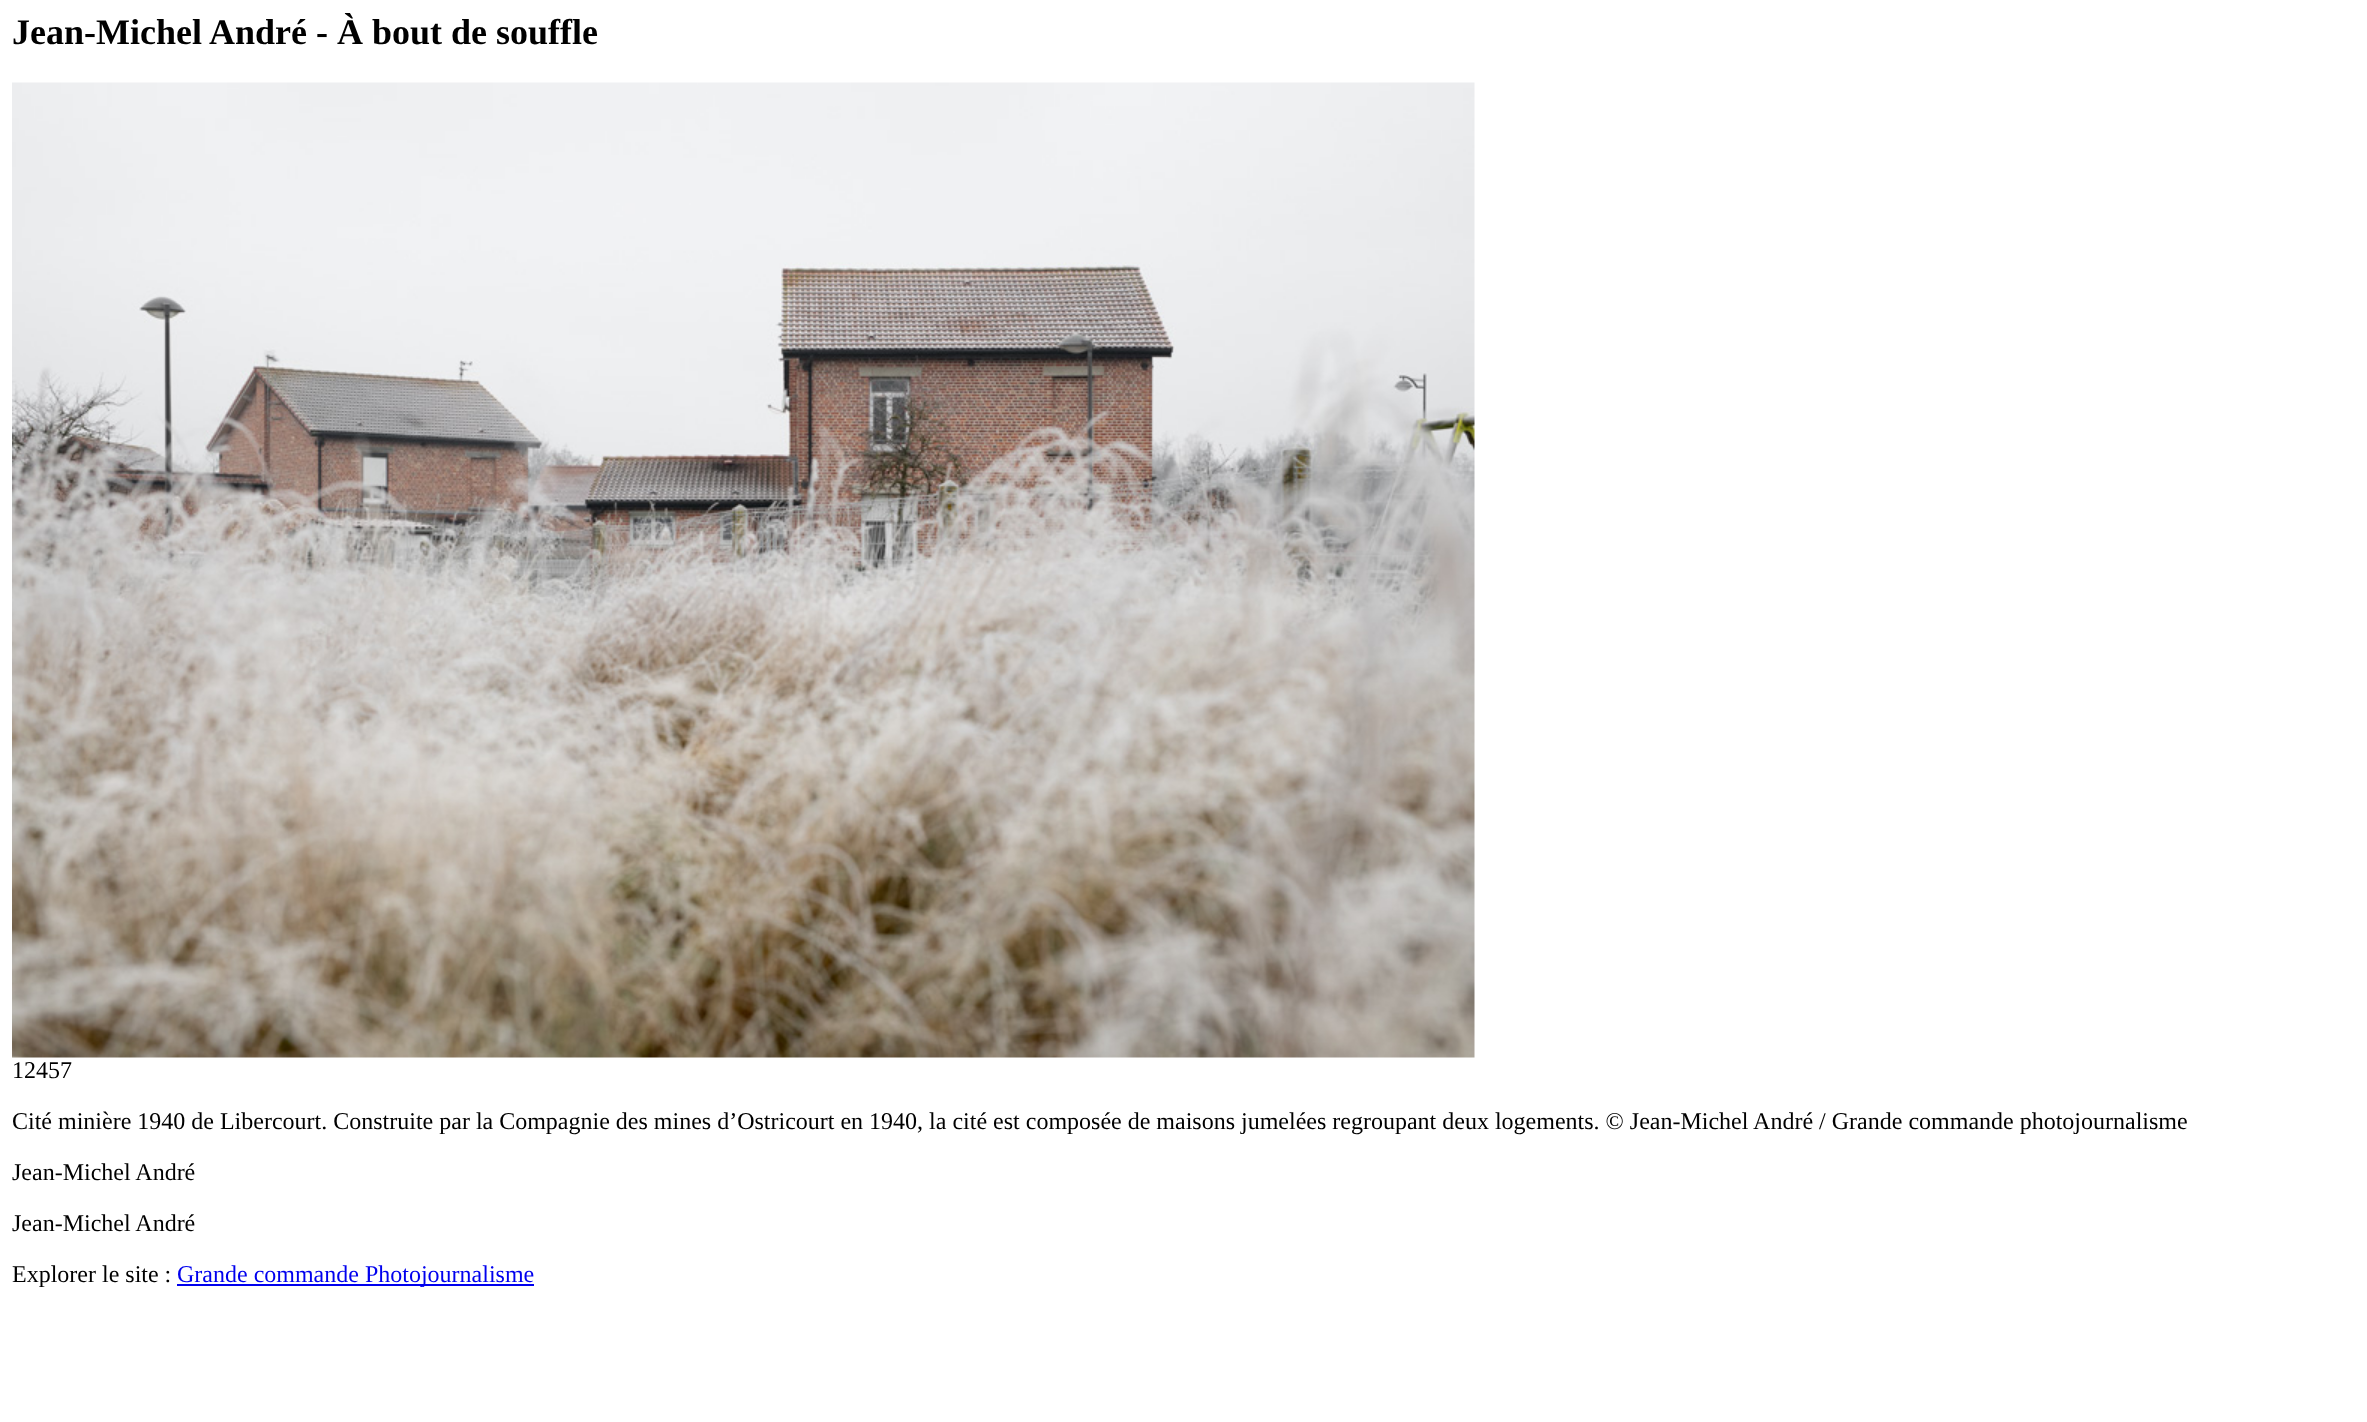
async function draw(canvas) {
  canvas.width = 2367
  canvas.height = 1422
  const ctx = canvas.getContext('2d')
  ctx.miterLimit = 4
  ctx.fontKerning = 'normal'
  async function loadImage(src) {
    const img = new Image()
    img.src = src
    await img.decode()
    return img
  }

  ctx.fillStyle = '#fff'
  ctx.fillRect(0, 0, 2367, 1422)
  ctx.font = 'bold 36px Liberation Serif'
  ctx.fillStyle = '#000'
  ctx.fillText('Jean-Michel André - À bout de souffle', 12, 44)
  ctx.drawImage(await loadImage('image0.png'), 12, 82, 1463, 976)
  ctx.font = '24px Liberation Serif'
  ctx.fillText('12457', 12, 1078)
  ctx.fillText('Cité minière 1940 de Libercourt. Construite par la Compagnie des mines d’Ostricourt en 1940, la cité est composée de maisons jumelées regroupant deux logements. © Jean-Michel André / Grande commande photojournalisme', 12, 1129)
  ctx.fillText('Jean-Michel André', 12, 1180)
  ctx.fillText('Jean-Michel André', 12, 1231)
  ctx.fillText('Explorer le site :', 12, 1282)
  ctx.fillStyle = '#00e'
  ctx.fillRect(177, 1284, 357, 2)
  ctx.fillText('Grande commande Photojournalisme', 177, 1282)
}

draw(document.querySelector('canvas'))
